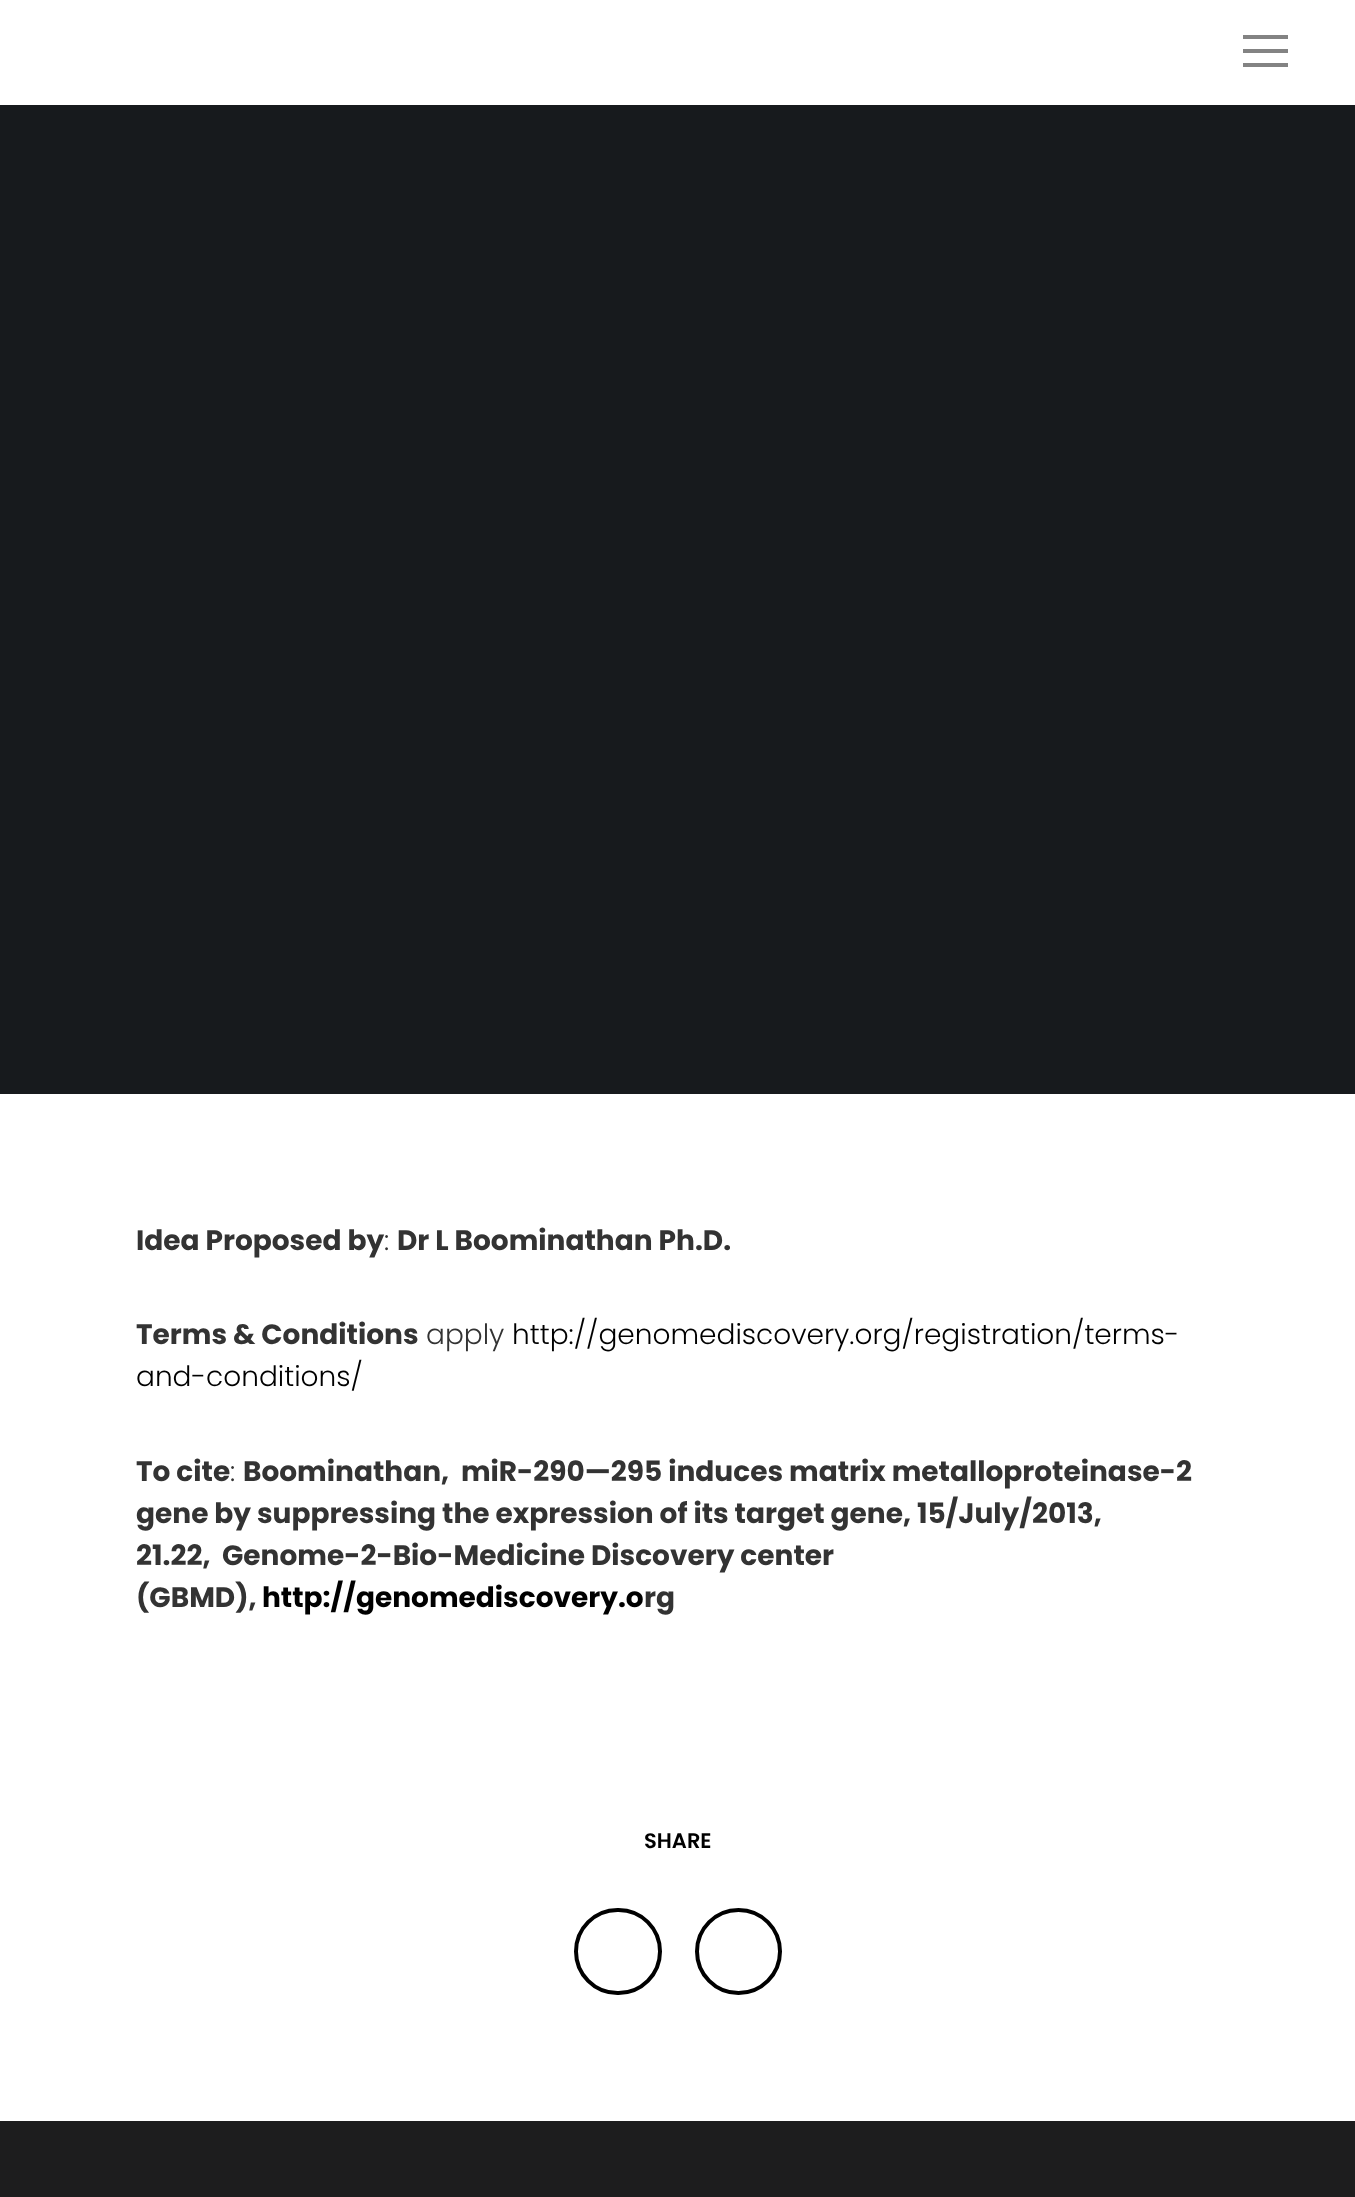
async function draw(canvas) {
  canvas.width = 1355
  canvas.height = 2197
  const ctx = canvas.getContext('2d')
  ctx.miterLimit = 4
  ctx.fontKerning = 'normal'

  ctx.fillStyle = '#171a1d'
  ctx.fillRect(0, 0, 1355, 2197)
  ctx.fillStyle = '#fff'
  ctx.fillRect(0, 0, 1355, 105)
  ctx.fillStyle = '#838383'
  ctx.fillRect(1243, 35, 45, 4)
  ctx.fillRect(1243, 49, 45, 4)
  ctx.fillRect(1243, 63, 45, 4)
  ctx.fillStyle = '#fff'
  ctx.fillRect(0, 1094, 1355, 1027)
  ctx.font = 'bold 28px Poppins'
  ctx.fillStyle = '#333'
  ctx.fillText('Idea Proposed by', 136, 1250)
  ctx.font = '300 28px Poppins'
  ctx.fillText(':', 384, 1250)
  ctx.font = 'bold 28px Poppins'
  ctx.fillText('Dr L Boominathan Ph.D.', 397, 1250)
  ctx.fillText('Terms & Conditions', 136, 1344)
  ctx.font = '300 28px Poppins'
  ctx.fillText('apply', 426, 1344)
  ctx.fillStyle = '#000'
  ctx.fillText('http://genomediscovery.org/registration/terms-', 512, 1344)
  ctx.fillText('and-conditions/', 136, 1386)
  ctx.font = 'bold 28px Poppins'
  ctx.fillStyle = '#333'
  ctx.fillText('To cite', 136, 1481)
  ctx.font = '300 28px Poppins'
  ctx.fillText(':', 230, 1481)
  ctx.font = 'bold 28px Poppins'
  ctx.fillText('Boominathan,  miR-290—295 induces matrix metalloproteinase-2', 243, 1481)
  ctx.fillText('gene by suppressing the expression of its target gene, 15/July/2013,', 136, 1523)
  ctx.fillText('21.22,', 136, 1565)
  ctx.fillText('Genome-2-Bio-Medicine Discovery center', 222, 1565)
  ctx.fillText('(GBMD),', 136, 1607)
  ctx.fillStyle = '#000'
  ctx.fillText('http://genomediscovery.o', 262, 1607)
  ctx.fillStyle = '#333'
  ctx.fillText('rg', 644, 1607)
  ctx.font = '600 21px Poppins'
  ctx.fillStyle = '#000'
  ctx.fillText('SHARE', 644, 1848)
  ctx.beginPath()
  ctx.roundRect(576, 1910, 84, 83, 41.5)
  ctx.strokeStyle = '#000'
  ctx.lineWidth = 4
  ctx.stroke()
  ctx.beginPath()
  ctx.arc(738.5, 1951.5, 41.5, 0, 2 * Math.PI)
  ctx.stroke()
  ctx.fillStyle = '#1d1d1e'
  ctx.fillRect(0, 2121, 1355, 76)
}

draw(document.querySelector('canvas'))
